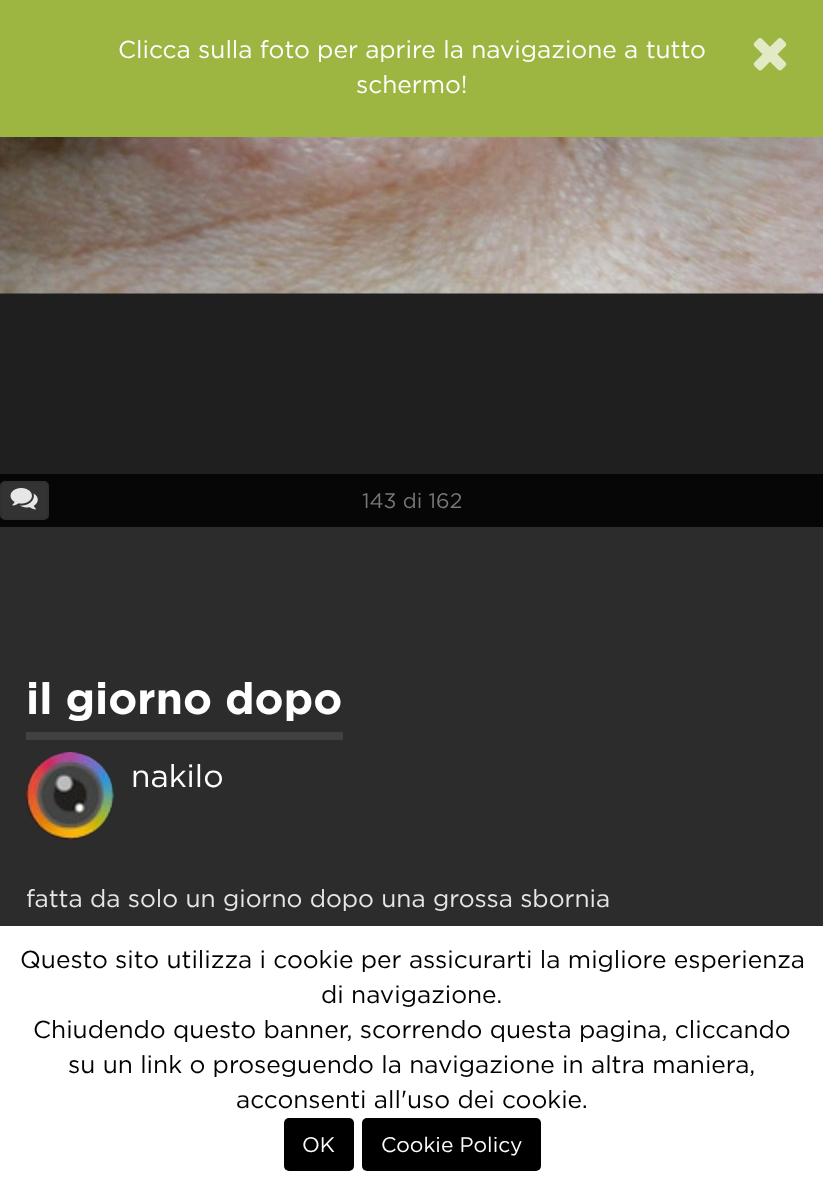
async function draw(canvas) {
  canvas.width = 823
  canvas.height = 1188
  const ctx = canvas.getContext('2d')
  ctx.miterLimit = 4
  ctx.fontKerning = 'normal'
  async function loadImage(src) {
    const img = new Image()
    img.src = src
    await img.decode()
    return img
  }

  ctx.fillStyle = '#2c2c2c'
  ctx.fillRect(0, 0, 823, 1188)
  ctx.fillStyle = '#9cb641'
  ctx.fillRect(0, 0, 823, 137)
  ctx.font = '24.5px Gotham'
  ctx.fillStyle = '#fff'
  ctx.fillText('Clicca sulla foto per aprire la navigazione a tutto', 118, 58)
  ctx.drawImage(await loadImage('image0.png'), 753, 38, 34, 33)
  ctx.fillText('schermo!', 356, 93)
  ctx.fillStyle = '#1f1f1f'
  ctx.fillRect(0, 293, 823, 181)
  ctx.drawImage(await loadImage('image1.png'), 0, 137, 823, 157)
  ctx.fillStyle = '#060606'
  ctx.fillRect(0, 474, 823, 53)
  ctx.fillStyle = '#333'
  ctx.beginPath()
  ctx.roundRect(1, 482, 47, 37, 4)
  ctx.fill()
  ctx.strokeStyle = '#303030'
  ctx.lineWidth = 2
  ctx.stroke()
  ctx.drawImage(await loadImage('image2.png'), 10, 488, 28, 22)
  ctx.font = '21px Gotham'
  ctx.fillStyle = '#777'
  ctx.fillText('143 di 162', 362, 508)
  ctx.font = 'bold 43.75px Gotham'
  ctx.fillStyle = '#fff'
  ctx.fillText('il giorno dopo', 26, 714)
  ctx.fillStyle = '#414141'
  ctx.fillRect(26, 732, 317, 8)
  ctx.drawImage(await loadImage('image3.png'), 26, 752, 88, 88)
  ctx.font = '31.5px Gotham'
  ctx.fillStyle = '#fff'
  ctx.fillText('nakilo', 131, 787)
  ctx.font = '24.5px Gotham'
  ctx.fillStyle = '#e6e6e6'
  ctx.fillText('fatta da solo un giorno dopo una grossa sbornia', 26, 907)
  ctx.fillStyle = '#fff'
  ctx.fillRect(0, 926, 823, 262)
  ctx.fillStyle = '#000'
  ctx.fillText('Questo sito utilizza i cookie per assicurarti la migliore esperienza', 20, 968)
  ctx.fillText('di navigazione.', 321, 1003)
  ctx.fillText('Chiudendo questo banner, scorrendo questa pagina, cliccando', 33, 1038)
  ctx.fillText('su un link o proseguendo la navigazione in altra maniera,', 68, 1073)
  ctx.fillText('acconsenti all\'uso dei cookie.', 236, 1108)
  ctx.beginPath()
  ctx.roundRect(284, 1118, 70, 53, 5)
  ctx.fill()
  ctx.font = '21px Gotham'
  ctx.fillStyle = '#fff'
  ctx.fillText('OK', 302, 1152)
  ctx.fillStyle = '#000'
  ctx.beginPath()
  ctx.roundRect(362, 1118, 179, 53, 5)
  ctx.fill()
  ctx.fillStyle = '#fff'
  ctx.fillText('Cookie Policy', 381, 1152)
}

draw(document.querySelector('canvas'))
